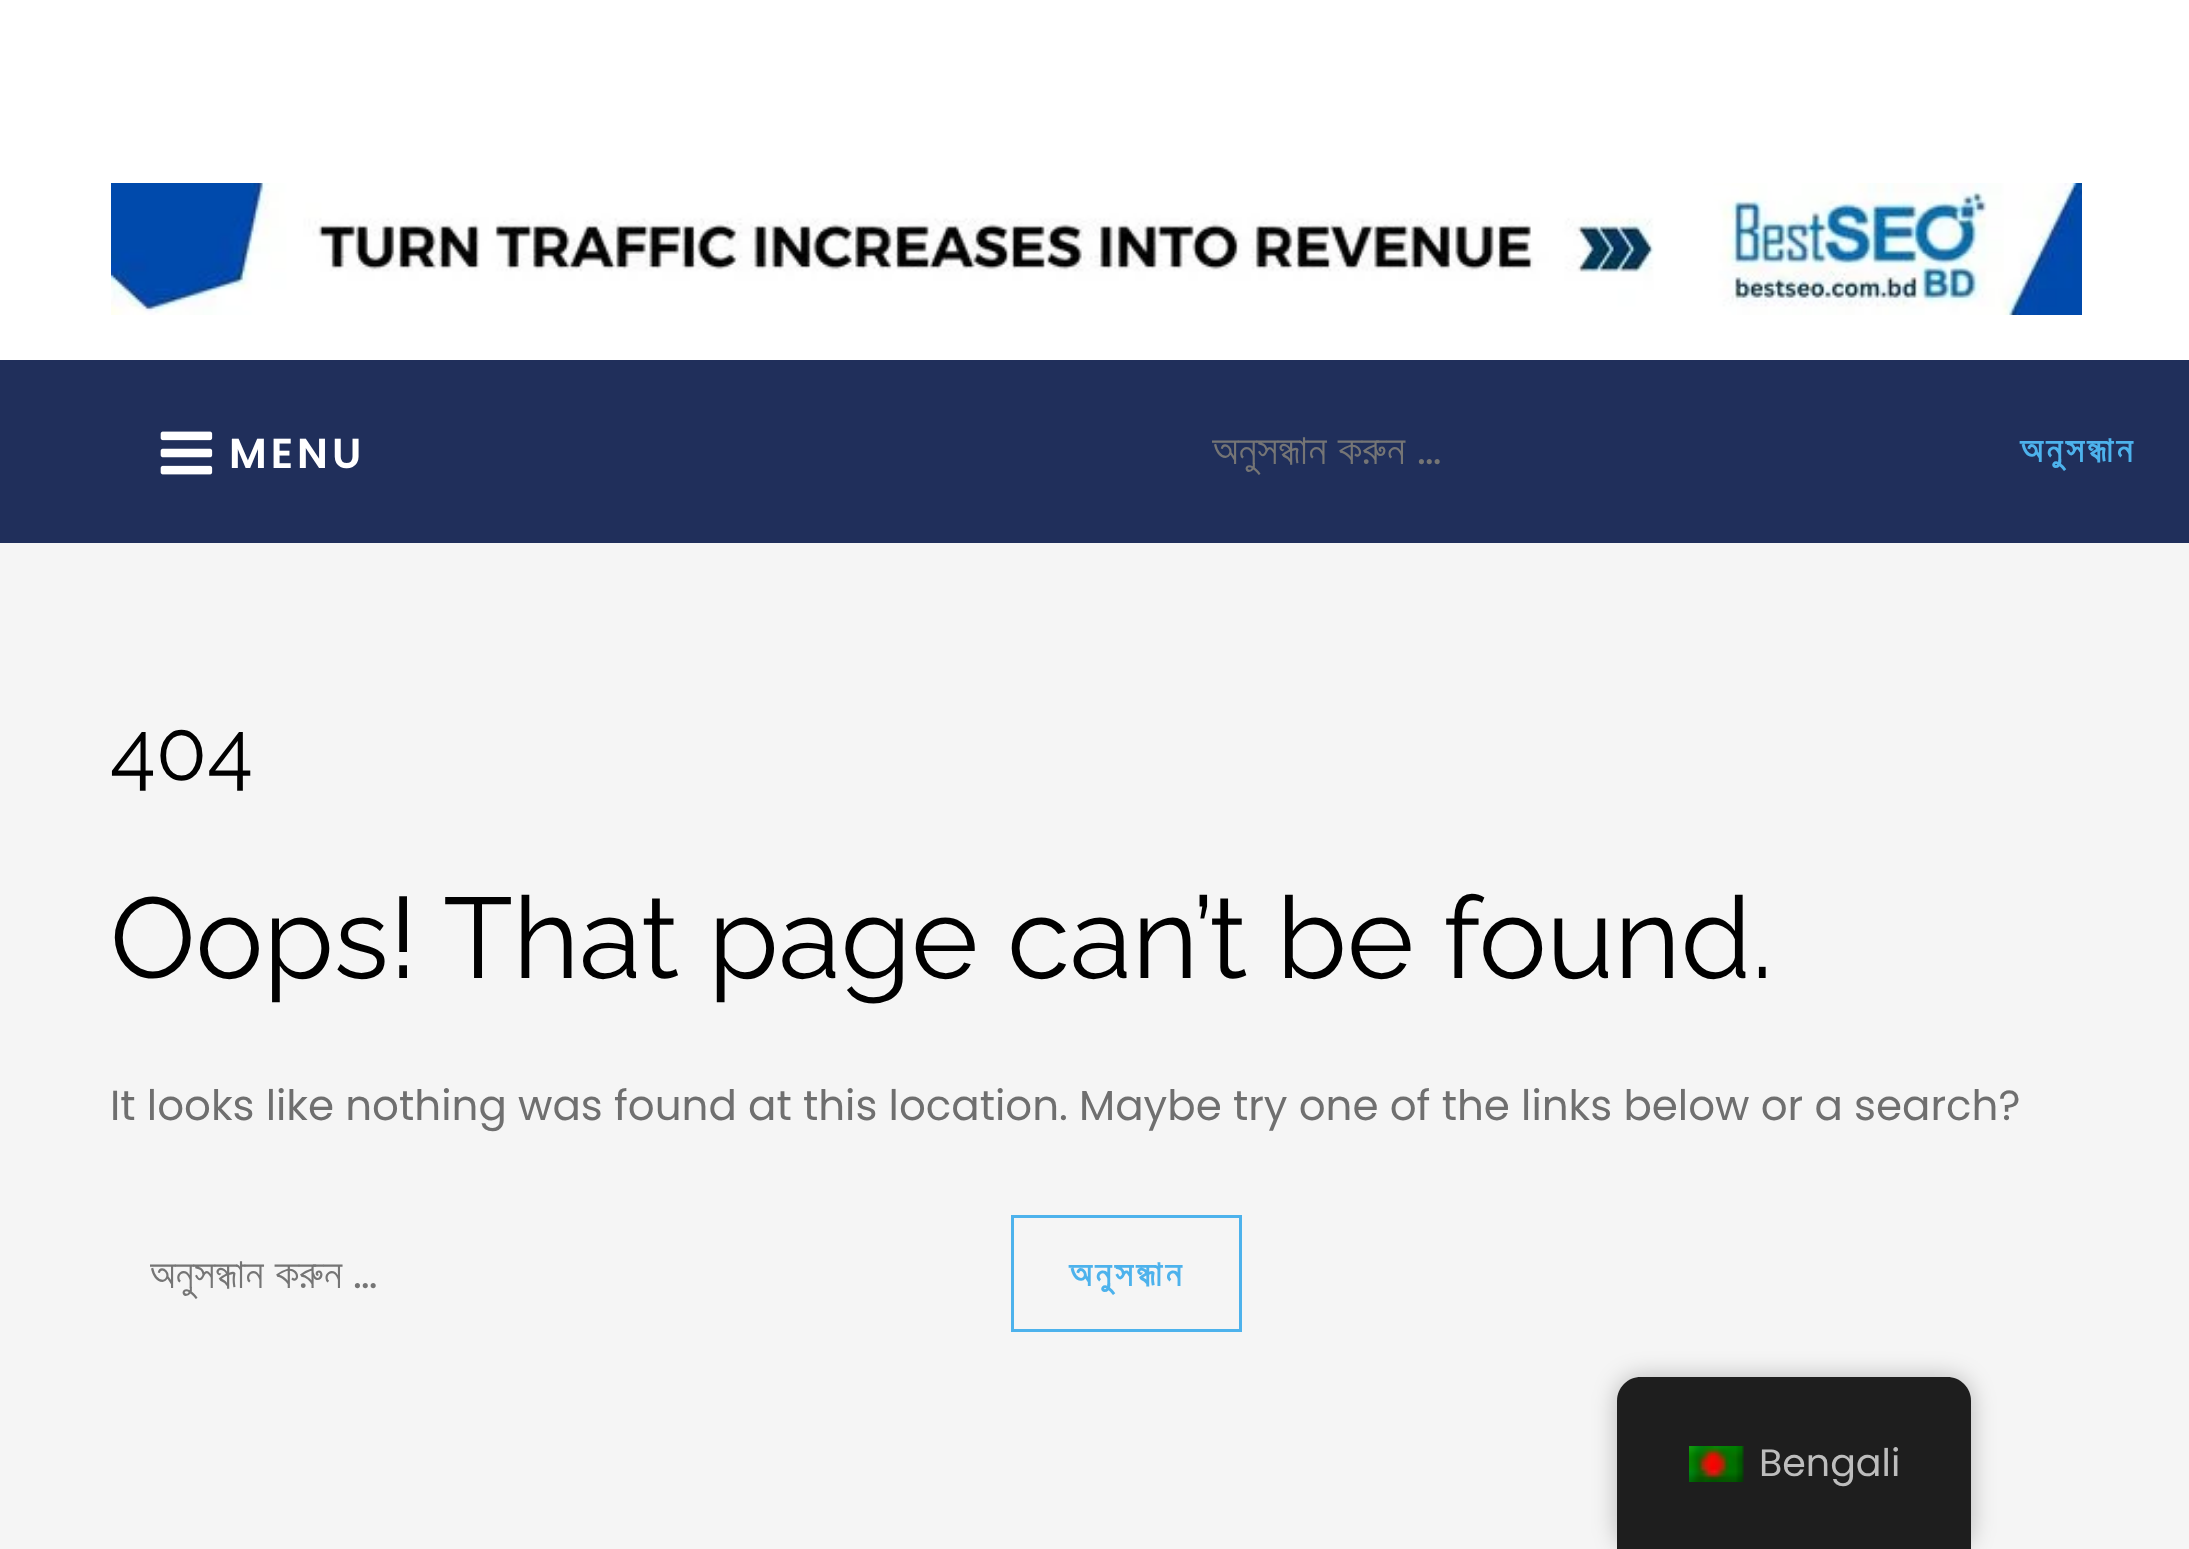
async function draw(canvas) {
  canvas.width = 2189
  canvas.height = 1549
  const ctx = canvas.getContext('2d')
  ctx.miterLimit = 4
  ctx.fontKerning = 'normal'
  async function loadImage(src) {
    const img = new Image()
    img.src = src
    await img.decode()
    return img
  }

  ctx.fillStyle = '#f5f5f5'
  ctx.fillRect(0, 0, 2189, 1549)
  ctx.fillStyle = '#fff'
  ctx.fillRect(0, 0, 2189, 360)
  ctx.drawImage(await loadImage('image0.png'), 111, 183, 1971, 132)
  ctx.fillStyle = '#202f5b'
  ctx.fillRect(0, 360, 2189, 183)
  ctx.drawImage(await loadImage('image1.png'), 160, 431, 53, 44)
  ctx.letterSpacing = '4px'
  ctx.font = '600 42px Poppins'
  ctx.fillStyle = '#fff'
  ctx.fillText('MENU', 229, 468)
  ctx.save()
  ctx.beginPath()
  ctx.rect(1212, 420, 771, 63)
  ctx.clip()
  ctx.letterSpacing = '0px'
  ctx.wordSpacing = '1px'
  ctx.font = '42px FreeSans'
  ctx.fillStyle = '#757575'
  ctx.fillText('অনুসন্ধান করুন', 1212, 464)
  ctx.restore()
  ctx.letterSpacing = '0px'
  ctx.font = '42px Poppins'
  ctx.fillStyle = '#757575'
  ctx.fillText('…', 1417, 464)
  ctx.letterSpacing = '3.5px'
  ctx.font = 'bold 36px FreeSans'
  ctx.fillStyle = '#4db2ec'
  ctx.fillText('অনুসন্ধান', 2020, 462)
  ctx.letterSpacing = '0px'
  ctx.font = '84px Raleway'
  ctx.fillStyle = '#000'
  ctx.fillText('404', 110, 780)
  ctx.font = '114px Raleway'
  ctx.fillText('Oops! That page can’t be found.', 110, 978)
  ctx.font = '42px Poppins'
  ctx.fillStyle = '#6f6f6f'
  ctx.fillText('It looks like nothing was found at this location. Maybe try one of the links below or a search?', 110, 1120)
  ctx.save()
  ctx.beginPath()
  ctx.rect(150, 1242, 771, 63)
  ctx.clip()
  ctx.wordSpacing = '1px'
  ctx.font = '42px FreeSans'
  ctx.fillStyle = '#757575'
  ctx.fillText('অনুসন্ধান করুন', 149, 1288)
  ctx.restore()
  ctx.fillStyle = '#757575'
  ctx.fillText('…', 353, 1288)
  ctx.strokeStyle = '#4db2ec'
  ctx.lineWidth = 3
  ctx.strokeRect(1012.5, 1216.5, 228, 114)
  ctx.letterSpacing = '3.5px'
  ctx.font = 'bold 36px FreeSans'
  ctx.fillStyle = '#4db2ec'
  ctx.fillText('অনুসন্ধান', 1069, 1286)
  ctx.fillStyle = '#00000040'
  ctx.filter = 'blur(12px)'
  ctx.beginPath()
  ctx.roundRect(1617, 1377, 354, 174, 24)
  ctx.fill()
  ctx.filter = 'none'
  ctx.fillStyle = '#1e1e1e'
  ctx.beginPath()
  ctx.moveTo(1641, 1377)
  ctx.lineTo(1947, 1377)
  ctx.bezierCurveTo(1960.5, 1377, 1971, 1387.5, 1971, 1401)
  ctx.lineTo(1971, 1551)
  ctx.lineTo(1617, 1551)
  ctx.lineTo(1617, 1401)
  ctx.bezierCurveTo(1617, 1387.5, 1627.5, 1377, 1641, 1377)
  ctx.closePath()
  ctx.fill()
  ctx.drawImage(await loadImage('image2.png'), 1689, 1446, 55, 36)
  ctx.letterSpacing = '0px'
  ctx.font = '38px Poppins'
  ctx.fillStyle = '#bdbdbd'
  ctx.fillText('Bengali', 1759, 1476)
}

draw(document.querySelector('canvas'))
